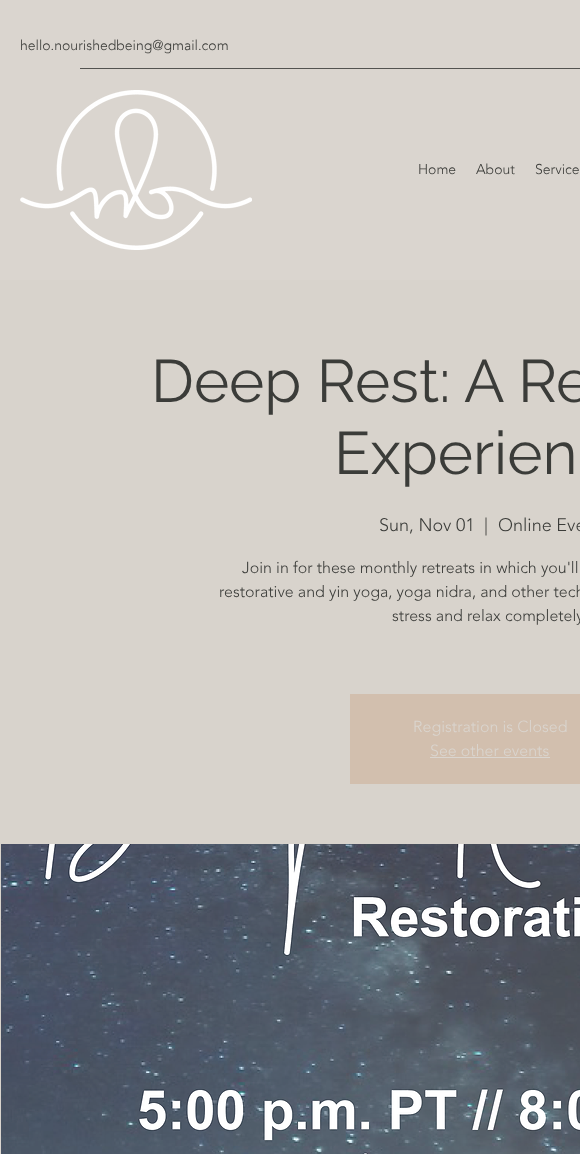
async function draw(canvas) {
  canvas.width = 580
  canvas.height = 1154
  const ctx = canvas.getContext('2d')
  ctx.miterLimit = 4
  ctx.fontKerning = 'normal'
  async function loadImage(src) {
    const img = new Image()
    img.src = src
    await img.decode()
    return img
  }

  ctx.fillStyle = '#dad5cf'
  ctx.fillRect(0, 0, 580, 1154)
  ctx.font = '300 14px "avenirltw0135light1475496"'
  ctx.fillStyle = '#3b3c39'
  ctx.fillText('hello.nourishedbeing@gmail.com', 20, 50)
  ctx.fillStyle = '#535350'
  ctx.fillRect(80, 68, 500, 1)
  ctx.drawImage(await loadImage('image0.png'), 20, 90, 232, 160)
  ctx.fillStyle = '#3b3c39'
  ctx.fillText('Home', 418, 174)
  ctx.fillText('About', 476, 174)
  ctx.fillText('Service', 535, 174)
  ctx.fillStyle = '#d8d3cc'
  ctx.fillRect(0, 280, 580, 840)
  ctx.font = '60px Raleway'
  ctx.fillStyle = '#3b3c39'
  ctx.fillText('Deep Rest: A Re', 151, 402)
  ctx.fillText('Experien', 334, 474)
  ctx.font = '300 18px "avenirltw0135light1475496"'
  ctx.fillText('Sun, Nov 01', 379, 531)
  ctx.fillText('|', 484, 531)
  ctx.fillText('Online Eve', 498, 531)
  ctx.font = '300 16px "avenirltw0135light1475496"'
  ctx.fillText('Join in for these monthly retreats in which you\'ll', 242, 573)
  ctx.fillText('restorative and yin yoga, yoga nidra, and other tech', 219, 597)
  ctx.fillText('stress and relax completely', 392, 621)
  ctx.fillStyle = '#d2bfae'
  ctx.fillRect(350, 694, 230, 90)
  ctx.fillStyle = '#dad5cf'
  ctx.fillText('Registration is Closed', 413, 732)
  ctx.fillText('See other events', 430, 756)
  ctx.fillRect(430, 757, 120, 1)
  ctx.drawImage(await loadImage('image1.png'), 1, 844, 579, 310)
}

draw(document.querySelector('canvas'))
